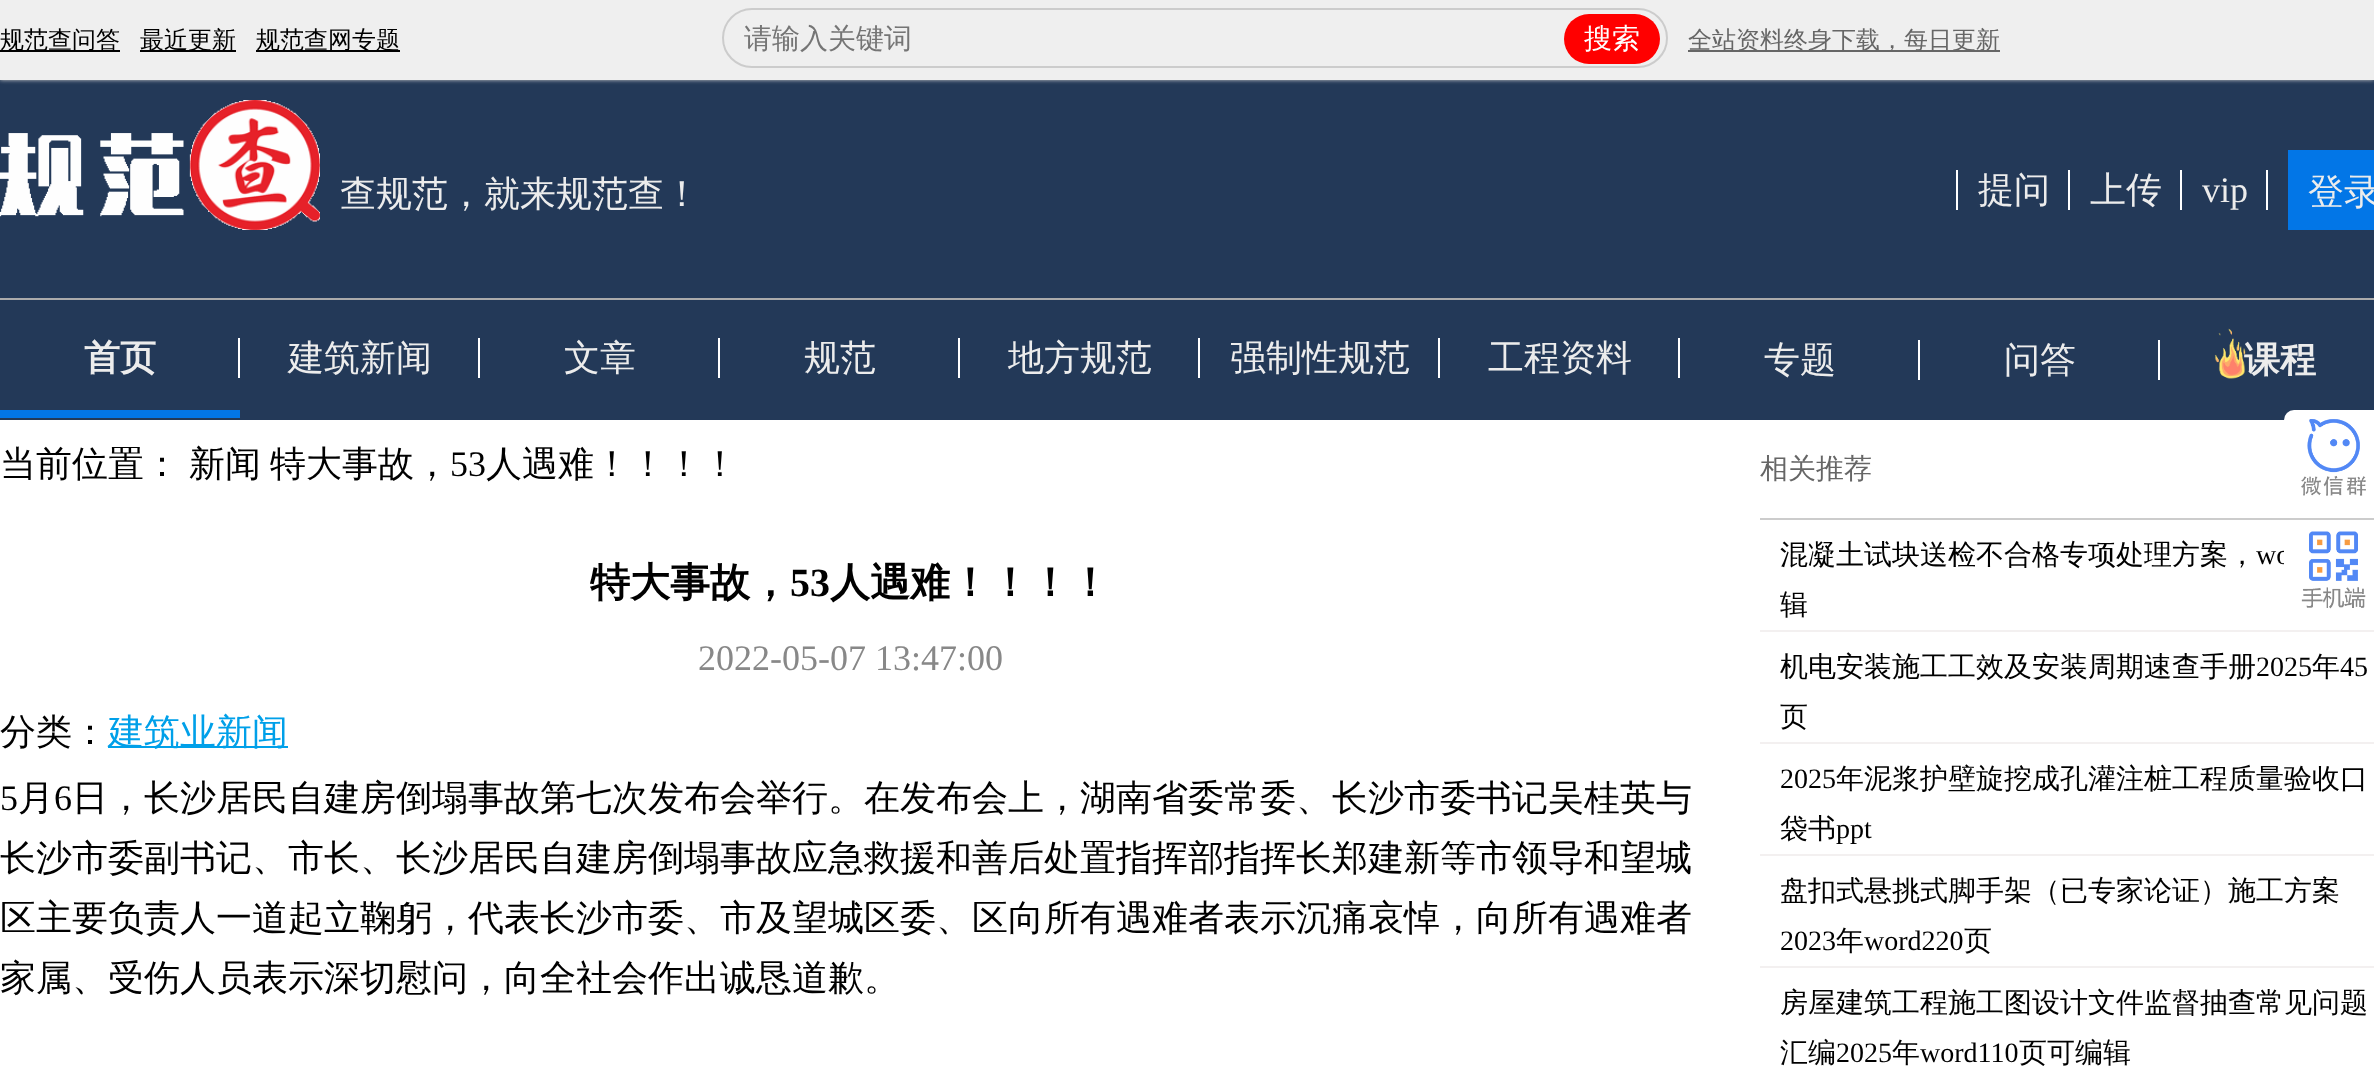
async function draw(canvas) {
  canvas.width = 2374
  canvas.height = 1073
  const ctx = canvas.getContext('2d')
  ctx.miterLimit = 4
  ctx.fontKerning = 'normal'
  async function loadImage(src) {
    const img = new Image()
    img.src = src
    await img.decode()
    return img
  }

  ctx.fillStyle = '#fff'
  ctx.fillRect(0, 0, 2374, 1073)
  ctx.fillStyle = '#233958'
  ctx.fillRect(0, 80, 2374, 340)
  ctx.fillStyle = '#ccc'
  ctx.filter = 'blur(2px)'
  ctx.beginPath()
  ctx.rect(0, 0, 2374, 80)
  ctx.fill()
  ctx.filter = 'none'
  ctx.fillStyle = '#efefef'
  ctx.fillRect(0, 0, 2374, 80)
  ctx.fillStyle = '#000'
  ctx.fillRect(0, 50, 120, 2)
  ctx.font = '500 24px WenQuanYi Zen Hei'
  ctx.fillText('规范查问答', 0, 48)
  ctx.fillRect(140, 50, 96, 2)
  ctx.fillText('最近更新', 140, 48)
  ctx.fillRect(256, 50, 144, 2)
  ctx.fillText('规范查网专题', 256, 48)
  ctx.beginPath()
  ctx.roundRect(723, 9, 944, 58, 29)
  ctx.strokeStyle = '#ccc'
  ctx.lineWidth = 2
  ctx.stroke()
  ctx.font = '500 28px WenQuanYi Zen Hei'
  ctx.fillStyle = '#757575'
  ctx.fillText('请输入关键词', 744, 48)
  ctx.fillStyle = '#f00'
  ctx.beginPath()
  ctx.roundRect(1564, 14, 96, 50, 25)
  ctx.fill()
  ctx.fillStyle = '#fff'
  ctx.fillText('搜索', 1584, 48)
  ctx.fillStyle = '#666'
  ctx.fillRect(1688, 50, 312, 2)
  ctx.font = '500 24px WenQuanYi Zen Hei'
  ctx.fillText('全站资料终身下载，每日更新', 1688, 48)
  ctx.fillStyle = '#ababab'
  ctx.fillRect(0, 298, 2374, 2)
  ctx.drawImage(await loadImage('image0.png'), 0, 100, 320, 130)
  ctx.font = '500 36px WenQuanYi Zen Hei'
  ctx.fillStyle = '#ececec'
  ctx.fillText('查规范，就来规范查！', 340, 206)
  ctx.fillStyle = '#fff'
  ctx.fillRect(1956, 170, 2, 40)
  ctx.fillStyle = '#ececec'
  ctx.fillText('提问', 1978, 202)
  ctx.fillStyle = '#fff'
  ctx.fillRect(2068, 170, 2, 40)
  ctx.fillStyle = '#ececec'
  ctx.fillText('上传', 2090, 202)
  ctx.fillStyle = '#fff'
  ctx.fillRect(2180, 170, 2, 40)
  ctx.font = '36px Liberation Serif'
  ctx.fillStyle = '#ececec'
  ctx.fillText('vip', 2202, 202)
  ctx.fillStyle = '#fff'
  ctx.fillRect(2266, 170, 2, 40)
  ctx.fillStyle = '#0276e7'
  ctx.fillRect(2288, 150, 86, 80)
  ctx.font = '500 36px WenQuanYi Zen Hei'
  ctx.fillStyle = '#ececec'
  ctx.fillText('登录', 2308, 204)
  ctx.fillStyle = '#0276e7'
  ctx.fillRect(0, 410, 240, 8)
  ctx.font = 'bold 36px WenQuanYi Zen Hei'
  ctx.fillStyle = '#ececec'
  ctx.fillText('首页', 84, 370)
  ctx.fillStyle = '#fff'
  ctx.fillRect(238, 338, 2, 40)
  ctx.font = '500 36px WenQuanYi Zen Hei'
  ctx.fillStyle = '#ececec'
  ctx.fillText('建筑新闻', 288, 370)
  ctx.fillStyle = '#fff'
  ctx.fillRect(478, 338, 2, 40)
  ctx.fillStyle = '#ececec'
  ctx.fillText('文章', 564, 370)
  ctx.fillStyle = '#fff'
  ctx.fillRect(718, 338, 2, 40)
  ctx.fillStyle = '#ececec'
  ctx.fillText('规范', 804, 370)
  ctx.fillStyle = '#fff'
  ctx.fillRect(958, 338, 2, 40)
  ctx.fillStyle = '#ececec'
  ctx.fillText('地方规范', 1008, 370)
  ctx.fillStyle = '#fff'
  ctx.fillRect(1198, 338, 2, 40)
  ctx.fillStyle = '#ececec'
  ctx.fillText('强制性规范', 1230, 370)
  ctx.fillStyle = '#fff'
  ctx.fillRect(1438, 338, 2, 40)
  ctx.fillStyle = '#ececec'
  ctx.fillText('工程资料', 1488, 370)
  ctx.fillStyle = '#fff'
  ctx.fillRect(1678, 338, 2, 40)
  ctx.fillStyle = '#ececec'
  ctx.fillText('专题', 1764, 372)
  ctx.fillStyle = '#fff'
  ctx.fillRect(1918, 340, 2, 40)
  ctx.fillStyle = '#ececec'
  ctx.fillText('问答', 2004, 372)
  ctx.fillStyle = '#fff'
  ctx.fillRect(2158, 340, 2, 40)
  ctx.font = 'bold 36px WenQuanYi Zen Hei'
  ctx.fillStyle = '#ececec'
  ctx.fillText('课程', 2244, 372)
  ctx.drawImage(await loadImage('image1.png'), 2214, 328, 32, 51)
  ctx.fillStyle = '#fff'
  ctx.beginPath()
  ctx.roundRect(2284, 410, 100, 100, 10)
  ctx.fill()
  ctx.drawImage(await loadImage('image2.png'), 2301, 419, 65, 77)
  ctx.font = '28px Liberation Serif'
  ctx.fillStyle = '#000'
  ctx.fillText('wo', 2256, 564)
  ctx.fillStyle = '#fff'
  ctx.beginPath()
  ctx.roundRect(2284, 520, 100, 100, 10)
  ctx.fill()
  ctx.drawImage(await loadImage('image3.png'), 2301, 531, 65, 78)
  ctx.font = '500 36px WenQuanYi Zen Hei'
  ctx.fillStyle = '#000'
  ctx.fillText('当前位置：', 0, 476)
  ctx.fillText('新闻', 189, 476)
  ctx.fillText('特大事故，', 270, 476)
  ctx.font = '36px Liberation Serif'
  ctx.fillText('53', 450, 476)
  ctx.font = '500 36px WenQuanYi Zen Hei'
  ctx.fillText('人遇难！！！！', 486, 476)
  ctx.font = 'bold 40px WenQuanYi Zen Hei'
  ctx.fillText('特大事故，', 590, 596)
  ctx.font = 'bold 40px Liberation Serif'
  ctx.fillText('53', 790, 596)
  ctx.font = 'bold 40px WenQuanYi Zen Hei'
  ctx.fillText('人遇难！！！！', 830, 596)
  ctx.font = '36px Liberation Serif'
  ctx.fillStyle = '#888'
  ctx.fillText('2022-05-07 13:47:00', 698, 670)
  ctx.font = '500 36px WenQuanYi Zen Hei'
  ctx.fillStyle = '#000'
  ctx.fillText('分类：', 0, 744)
  ctx.fillStyle = '#00a0e9'
  ctx.fillRect(108, 746, 180, 2)
  ctx.fillText('建筑业新闻', 108, 744)
  ctx.font = '36px Liberation Serif'
  ctx.fillStyle = '#000'
  ctx.fillText('5', 0, 810)
  ctx.font = '500 36px WenQuanYi Zen Hei'
  ctx.fillText('月', 18, 810)
  ctx.font = '36px Liberation Serif'
  ctx.fillText('6', 54, 810)
  ctx.font = '500 36px WenQuanYi Zen Hei'
  ctx.fillText('日，长沙居民自建房倒塌事故第七次发布会举行。在发布会上，湖南省委常委、长沙市委书记吴桂英与', 72, 810)
  ctx.fillText('长沙市委副书记、市长、长沙居民自建房倒塌事故应急救援和善后处置指挥部指挥长郑建新等市领导和望城', 0, 870)
  ctx.fillText('区主要负责人一道起立鞠躬，代表长沙市委、市及望城区委、区向所有遇难者表示沉痛哀悼，向所有遇难者', 0, 930)
  ctx.fillText('家属、受伤人员表示深切慰问，向全社会作出诚恳道歉。', 0, 990)
  ctx.fillStyle = '#ccc'
  ctx.fillRect(1760, 518, 614, 2)
  ctx.font = '500 28px WenQuanYi Zen Hei'
  ctx.fillStyle = '#666'
  ctx.fillText('相关推荐', 1760, 478)
  ctx.fillStyle = '#f3f0f0'
  ctx.fillRect(1760, 630, 614, 2)
  ctx.fillStyle = '#000'
  ctx.fillText('混凝土试块送检不合格专项处理方案，', 1780, 564)
  ctx.fillText('辑', 1780, 614)
  ctx.fillStyle = '#f3f0f0'
  ctx.fillRect(1760, 742, 614, 2)
  ctx.fillStyle = '#000'
  ctx.fillText('机电安装施工工效及安装周期速查手册', 1780, 676)
  ctx.font = '28px Liberation Serif'
  ctx.fillText('2025', 2256, 676)
  ctx.font = '500 28px WenQuanYi Zen Hei'
  ctx.fillText('年', 2312, 676)
  ctx.font = '28px Liberation Serif'
  ctx.fillText('45', 2340, 676)
  ctx.font = '500 28px WenQuanYi Zen Hei'
  ctx.fillText('页', 1780, 726)
  ctx.fillStyle = '#f3f0f0'
  ctx.fillRect(1760, 854, 614, 2)
  ctx.font = '28px Liberation Serif'
  ctx.fillStyle = '#000'
  ctx.fillText('2025', 1780, 788)
  ctx.font = '500 28px WenQuanYi Zen Hei'
  ctx.fillText('年泥浆护壁旋挖成孔灌注桩工程质量验收口', 1836, 788)
  ctx.fillText('袋书', 1780, 838)
  ctx.font = '28px Liberation Serif'
  ctx.fillText('ppt', 1836, 838)
  ctx.fillStyle = '#f3f0f0'
  ctx.fillRect(1760, 966, 614, 2)
  ctx.font = '500 28px WenQuanYi Zen Hei'
  ctx.fillStyle = '#000'
  ctx.fillText('盘扣式悬挑式脚手架（已专家论证）施工方案', 1780, 900)
  ctx.font = '28px Liberation Serif'
  ctx.fillText('2023', 1780, 950)
  ctx.font = '500 28px WenQuanYi Zen Hei'
  ctx.fillText('年', 1836, 950)
  ctx.font = '28px Liberation Serif'
  ctx.fillText('word220', 1864, 950)
  ctx.font = '500 28px WenQuanYi Zen Hei'
  ctx.fillText('页', 1964, 950)
  ctx.fillText('房屋建筑工程施工图设计文件监督抽查常见问题', 1780, 1012)
  ctx.fillText('汇编', 1780, 1062)
  ctx.font = '28px Liberation Serif'
  ctx.fillText('2025', 1836, 1062)
  ctx.font = '500 28px WenQuanYi Zen Hei'
  ctx.fillText('年', 1892, 1062)
  ctx.font = '28px Liberation Serif'
  ctx.fillText('word110', 1920, 1062)
  ctx.font = '500 28px WenQuanYi Zen Hei'
  ctx.fillText('页可编辑', 2019, 1062)
}

draw(document.querySelector('canvas'))
